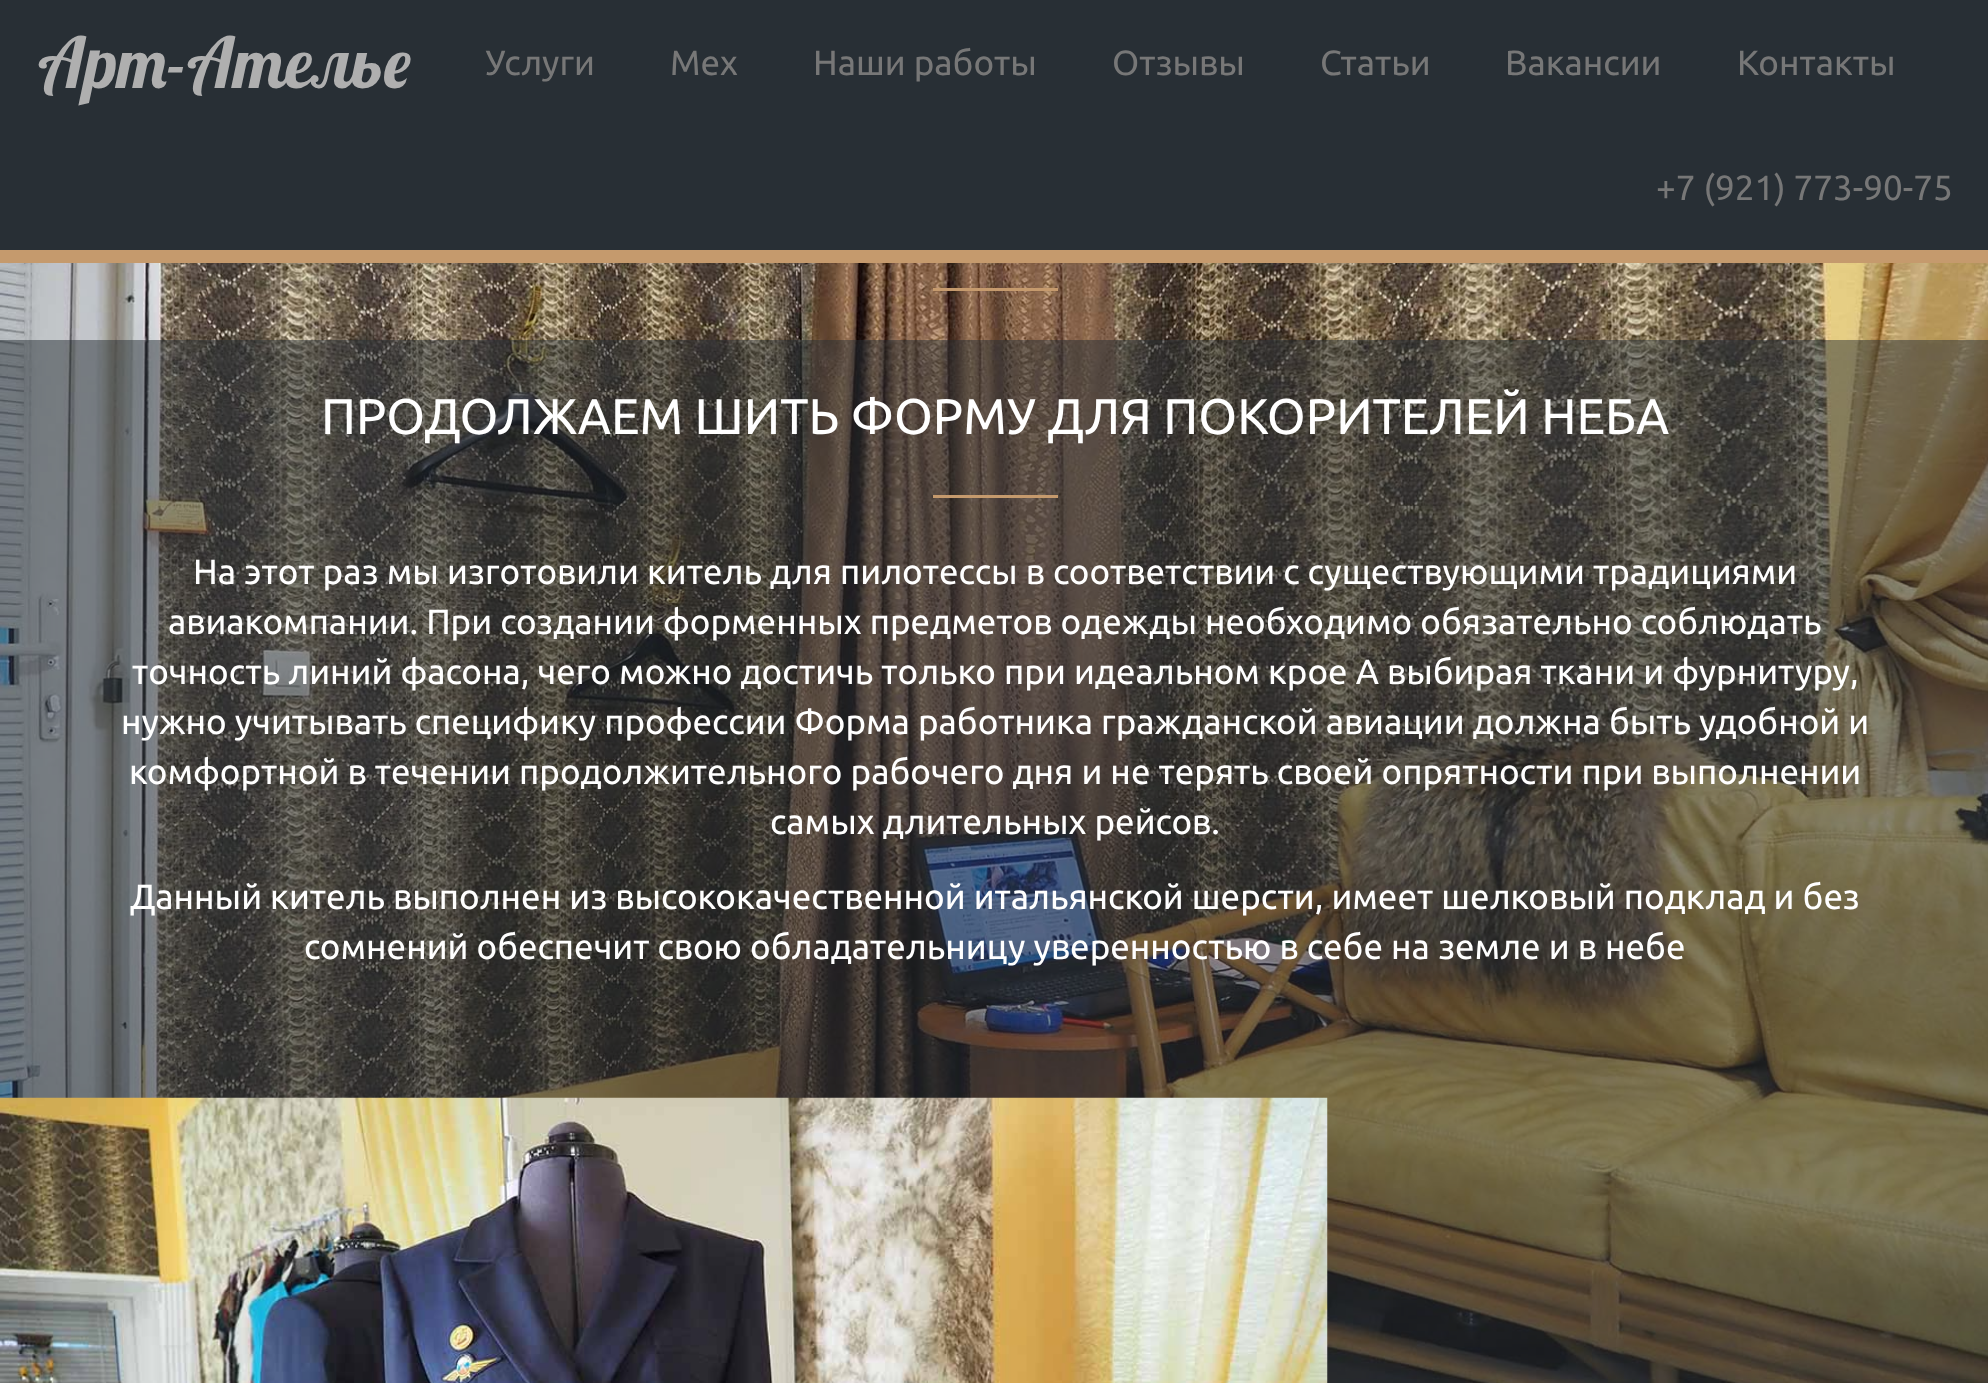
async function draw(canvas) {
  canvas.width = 1988
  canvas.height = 1383
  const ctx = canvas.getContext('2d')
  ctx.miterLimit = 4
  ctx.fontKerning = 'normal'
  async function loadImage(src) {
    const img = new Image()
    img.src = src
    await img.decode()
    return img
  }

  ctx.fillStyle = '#fff'
  ctx.fillRect(0, 0, 1988, 1383)
  ctx.drawImage(await loadImage('image0.png'), 0, 263, 1988, 1120)
  ctx.fillStyle = '#282f35'
  ctx.fillRect(0, 0, 1988, 250)
  ctx.fillStyle = '#c59a6d'
  ctx.fillRect(0, 250, 1988, 13)
  ctx.font = '70px Lobster'
  ctx.fillStyle = '#afafaf'
  ctx.fillText('Арт-Ателье', 38, 88)
  ctx.font = '35px Ubuntu'
  ctx.fillStyle = '#777'
  ctx.fillText('Услуги', 485, 75)
  ctx.fillText('Мех', 670, 75)
  ctx.fillText('Наши работы', 813, 75)
  ctx.fillText('Отзывы', 1112, 75)
  ctx.fillText('Статьи', 1320, 75)
  ctx.fillText('Вакансии', 1505, 75)
  ctx.fillText('Контакты', 1737, 75)
  ctx.fillText('+7 (921) 773-90-75', 1656, 200)
  ctx.fillStyle = '#c59a6d'
  ctx.fillRect(933, 288, 125, 3)
  ctx.fillStyle = '#282f3580'
  ctx.fillRect(0, 340, 1988, 1043)
  ctx.font = '50px Ubuntu'
  ctx.fillStyle = '#fff'
  ctx.fillText('ПРОДОЛЖАЕМ ШИТЬ ФОРМУ ДЛЯ ПОКОРИТЕЛЕЙ НЕБА', 321, 434)
  ctx.fillStyle = '#c59a6d'
  ctx.fillRect(933, 495, 125, 3)
  ctx.font = '35px Ubuntu'
  ctx.fillStyle = '#fff'
  ctx.fillText('На этот раз мы изготовили китель для пилотессы в соответствии с существующими традициями', 193, 584)
  ctx.fillText('авиакомпании. При создании форменных предметов одежды необходимо обязательно соблюдать', 168, 634)
  ctx.fillText('точность линий фасона, чего можно достичь только при идеальном крое А выбирая ткани и фурнитуру,', 132, 684)
  ctx.fillText('нужно учитывать специфику профессии Форма работника гражданской авиации должна быть удобной и', 121, 734)
  ctx.fillText('комфортной в течении продолжительного рабочего дня и не терять своей опрятности при выполнении', 129, 784)
  ctx.fillText('самых длительных рейсов.', 770, 834)
  ctx.fillText('Данный китель выполнен из высококачественной итальянской шерсти, имеет шелковый подклад и без', 130, 909)
  ctx.fillText('сомнений обеспечит свою обладательницу уверенностью в себе на земле и в небе', 304, 959)
  ctx.drawImage(await loadImage('image1.png'), 0, 1097, 1328, 286)
}

draw(document.querySelector('canvas'))
